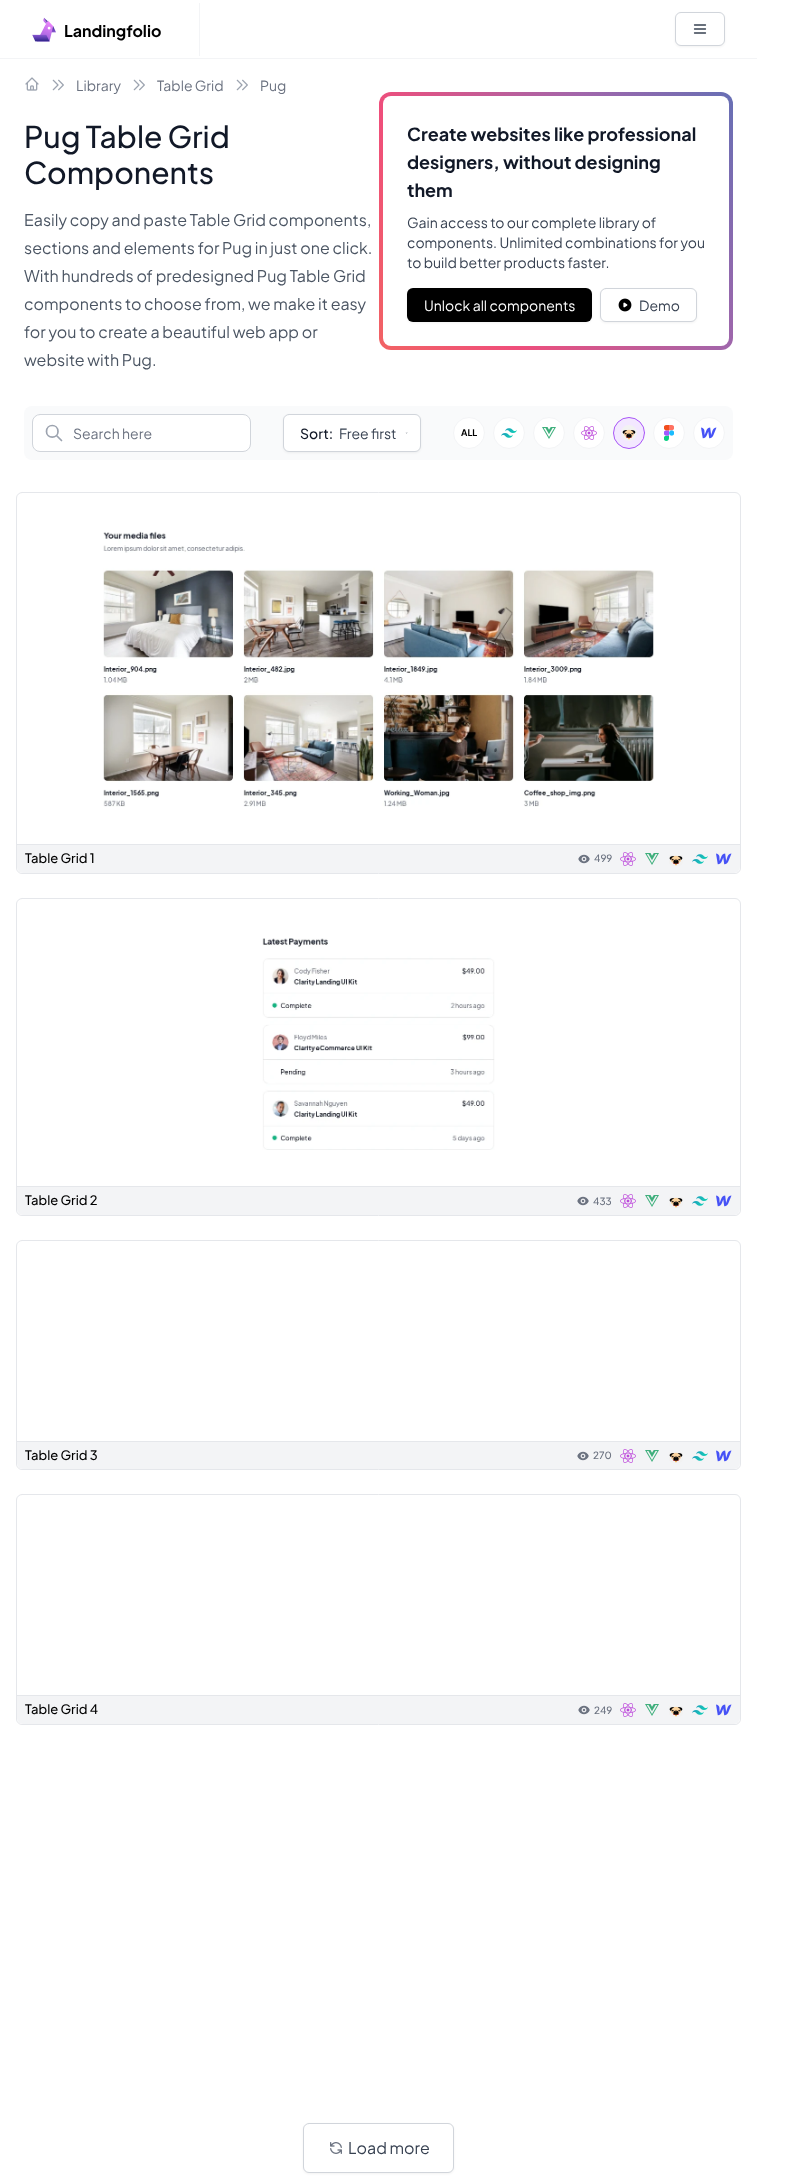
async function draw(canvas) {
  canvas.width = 807
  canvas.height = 2182
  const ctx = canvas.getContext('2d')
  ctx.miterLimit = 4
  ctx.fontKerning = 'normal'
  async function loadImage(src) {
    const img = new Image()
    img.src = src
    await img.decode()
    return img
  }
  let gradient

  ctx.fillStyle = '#fff'
  ctx.fillRect(0, 0, 807, 2182)
  ctx.fillStyle = '#f3f4f6'
  ctx.fillRect(0, 58, 757, 1)
  ctx.fillRect(199, 3, 1, 53)
  ctx.drawImage(await loadImage('image0.png'), 32, 17, 24, 25)
  ctx.font = 'bold 16px Plus Jakarta Sans'
  ctx.fillStyle = '#000'
  ctx.fillText('Landingfolio', 64, 37)
  ctx.fillStyle = '#0000000d'
  ctx.filter = 'blur(1px)'
  ctx.beginPath()
  ctx.roundRect(675, 13, 50, 34, 6)
  ctx.fill()
  ctx.filter = 'none'
  ctx.fillStyle = '#fff'
  ctx.beginPath()
  ctx.roundRect(675.5, 12.5, 49, 33, 5.5)
  ctx.fill()
  ctx.strokeStyle = '#d1d5db'
  ctx.stroke()
  ctx.beginPath()
  ctx.moveTo(694.5, 25)
  ctx.lineTo(705.5, 25)
  ctx.moveTo(694.5, 29)
  ctx.lineTo(705.5, 29)
  ctx.moveTo(694.5, 33)
  ctx.lineTo(705.5, 33)
  ctx.strokeStyle = '#374151'
  ctx.lineWidth = 1.3
  ctx.lineCap = 'round'
  ctx.lineJoin = 'round'
  ctx.stroke()
  ctx.drawImage(await loadImage('image1.png'), 25, 77, 14, 14)
  ctx.drawImage(await loadImage('image2.png'), 52, 79, 12, 12)
  ctx.font = '14px Plus Jakarta Sans'
  ctx.fillStyle = '#6b7280'
  ctx.fillText('Library', 76, 91)
  ctx.drawImage(await loadImage('image2.png'), 133, 79, 12, 12)
  ctx.fillText('Table Grid', 157, 91)
  ctx.drawImage(await loadImage('image2.png'), 236, 79, 12, 12)
  ctx.fillText('Pug', 260, 91)
  ctx.font = '500 30px Plus Jakarta Sans'
  ctx.fillStyle = '#111827'
  ctx.fillText('Pug Table Grid', 24, 148)
  ctx.fillText('Components', 24, 184)
  ctx.font = '16px Plus Jakarta Sans'
  ctx.fillStyle = '#4b5563'
  ctx.fillText('Easily copy and paste Table Grid components,', 24, 226)
  ctx.fillText('sections and elements for Pug in just one click.', 24, 254)
  ctx.fillText('With hundreds of predesigned Pug Table Grid', 24, 282)
  ctx.fillText('components to choose from, we make it easy', 24, 310)
  ctx.fillText('for you to create a beautiful web app or', 24, 338)
  ctx.fillText('website with Pug.', 24, 366)
  gradient = ctx.createLinearGradient(344, 806, 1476, 152)
  gradient.addColorStop(0, '#f79533')
  gradient.addColorStop(0.14, '#f37055')
  gradient.addColorStop(0.29, '#ef4e7b')
  gradient.addColorStop(0.43, '#a166ab')
  gradient.addColorStop(0.57, '#5073b8')
  gradient.addColorStop(0.71, '#1098ad')
  gradient.addColorStop(0.86, '#07b39b')
  gradient.addColorStop(1, '#6fba82')
  ctx.fillStyle = gradient
  ctx.beginPath()
  ctx.roundRect(379, 92, 354, 258, 12)
  ctx.fill()
  ctx.fillStyle = '#fff'
  ctx.beginPath()
  ctx.roundRect(383, 96, 346, 250, 8)
  ctx.fill()
  ctx.font = 'bold 18px Plus Jakarta Sans'
  ctx.fillStyle = '#111827'
  ctx.fillText('Create websites like professional', 407, 141)
  ctx.fillText('designers, without designing', 407, 169)
  ctx.fillText('them', 407, 197)
  ctx.font = '14px Plus Jakarta Sans'
  ctx.fillStyle = '#374151'
  ctx.fillText('Gain access to our complete library of', 407, 228)
  ctx.fillText('components. Unlimited combinations for you', 407, 248)
  ctx.fillText('to build better products faster.', 407, 268)
  ctx.fillStyle = '#0000000d'
  ctx.filter = 'blur(1px)'
  ctx.beginPath()
  ctx.roundRect(407, 289, 185, 34, 6)
  ctx.fill()
  ctx.filter = 'none'
  ctx.fillStyle = '#000'
  ctx.beginPath()
  ctx.roundRect(407, 288, 185, 34, 6)
  ctx.fill()
  ctx.fillStyle = '#fff'
  ctx.fillText('Unlock all components', 424, 311)
  ctx.fillStyle = '#0000000d'
  ctx.filter = 'blur(1px)'
  ctx.beginPath()
  ctx.roundRect(600, 289, 97, 34, 6)
  ctx.fill()
  ctx.filter = 'none'
  ctx.fillStyle = '#fff'
  ctx.beginPath()
  ctx.roundRect(600.5, 288.5, 96, 33, 5.5)
  ctx.fill()
  ctx.strokeStyle = '#d1d5db'
  ctx.lineWidth = 1
  ctx.lineJoin = 'miter'
  ctx.stroke()
  ctx.drawImage(await loadImage('image3.png'), 618, 298, 14, 14)
  ctx.fillStyle = '#374151'
  ctx.fillText('Demo', 639, 311)
  ctx.fillStyle = '#f9fafb'
  ctx.beginPath()
  ctx.roundRect(24, 406, 709, 54, 8)
  ctx.fill()
  ctx.fillStyle = '#fff'
  ctx.beginPath()
  ctx.roundRect(32.5, 414.5, 218, 37, 7.5)
  ctx.fill()
  ctx.stroke()
  ctx.beginPath()
  ctx.moveTo(61.5, 440.5)
  ctx.lineTo(56.5, 435.5)
  ctx.moveTo(58, 431.5)
  ctx.bezierCurveTo(58, 439, 46.5, 439, 46.5, 431.5)
  ctx.bezierCurveTo(46.5, 423.5, 58, 423.5, 58, 431.5)
  ctx.closePath()
  ctx.strokeStyle = '#9ca3af'
  ctx.lineWidth = 1.7
  ctx.lineJoin = 'round'
  ctx.stroke()
  ctx.fillStyle = '#6b7280'
  ctx.fillText('Search here', 73, 439)
  ctx.fillStyle = '#0000000d'
  ctx.filter = 'blur(1px)'
  ctx.beginPath()
  ctx.roundRect(283, 415, 138, 38, 6)
  ctx.fill()
  ctx.filter = 'none'
  ctx.fillStyle = '#fff'
  ctx.beginPath()
  ctx.roundRect(283.5, 414.5, 137, 37, 5.5)
  ctx.fill()
  ctx.strokeStyle = '#d1d5db'
  ctx.lineWidth = 1
  ctx.lineJoin = 'miter'
  ctx.stroke()
  ctx.font = '500 14px Plus Jakarta Sans'
  ctx.fillStyle = '#111827'
  ctx.fillText('Sort:', 300, 439)
  ctx.font = '14px Plus Jakarta Sans'
  ctx.fillStyle = '#374151'
  ctx.fillText('Free first', 339, 439)
  ctx.drawImage(await loadImage('image4.png'), 405, 432, 3, 2)
  ctx.fillStyle = '#fff'
  ctx.beginPath()
  ctx.arc(469, 433, 15.5, 0, 2 * Math.PI)
  ctx.fill()
  ctx.strokeStyle = '#f3f4f6'
  ctx.stroke()
  ctx.font = 'bold 9px Plus Jakarta Sans'
  ctx.fillStyle = '#000'
  ctx.fillText('ALL', 461, 436)
  ctx.fillStyle = '#fff'
  ctx.beginPath()
  ctx.arc(509, 433, 15.5, 0, 2 * Math.PI)
  ctx.fill()
  ctx.stroke()
  ctx.drawImage(await loadImage('image5.png'), 501, 428, 16, 10)
  ctx.beginPath()
  ctx.arc(549, 433, 15.5, 0, 2 * Math.PI)
  ctx.fill()
  ctx.stroke()
  ctx.drawImage(await loadImage('image6.png'), 542, 427, 14, 12)
  ctx.beginPath()
  ctx.arc(589, 433, 15.5, 0, 2 * Math.PI)
  ctx.fill()
  ctx.stroke()
  ctx.drawImage(await loadImage('image7.png'), 581, 426, 16, 14)
  ctx.fillStyle = '#f3e8ff'
  ctx.beginPath()
  ctx.arc(629, 433, 15.5, 0, 2 * Math.PI)
  ctx.fill()
  ctx.strokeStyle = '#a855f7'
  ctx.stroke()
  ctx.drawImage(await loadImage('image8.png'), 621, 425, 16, 16)
  ctx.fillStyle = '#fff'
  ctx.beginPath()
  ctx.arc(669, 433, 15.5, 0, 2 * Math.PI)
  ctx.fill()
  ctx.strokeStyle = '#f3f4f6'
  ctx.stroke()
  ctx.drawImage(await loadImage('image9.png'), 664, 425, 10, 16)
  ctx.beginPath()
  ctx.arc(709, 433, 15.5, 0, 2 * Math.PI)
  ctx.fill()
  ctx.stroke()
  ctx.drawImage(await loadImage('image10.png'), 701, 427, 16, 12)
  ctx.beginPath()
  ctx.roundRect(16.5, 492.5, 724, 381, 5.5)
  ctx.strokeStyle = '#e5e7eb'
  ctx.stroke()
  ctx.drawImage(await loadImage('image11.png'), 103, 531, 551, 276)
  ctx.fillStyle = '#f3f4f6'
  ctx.beginPath()
  ctx.roundRect(17, 845, 723, 28, [0, 0, 6, 6])
  ctx.fill()
  ctx.fillStyle = '#e5e7eb'
  ctx.fillRect(17, 844, 723, 1)
  ctx.font = '500 13px Plus Jakarta Sans'
  ctx.fillStyle = '#000'
  ctx.fillText('Table Grid 1', 25, 863)
  ctx.drawImage(await loadImage('image12.png'), 578, 854, 12, 10)
  ctx.font = '500 10px Plus Jakarta Sans'
  ctx.fillStyle = '#6b7280'
  ctx.fillText('499', 594, 862)
  ctx.drawImage(await loadImage('image13.png'), 620, 852, 16, 14)
  ctx.drawImage(await loadImage('image14.png'), 645, 853, 14, 12)
  ctx.drawImage(await loadImage('image15.png'), 669, 855, 14, 11)
  ctx.drawImage(await loadImage('image16.png'), 692, 854, 16, 10)
  ctx.drawImage(await loadImage('image17.png'), 716, 853, 16, 12)
  ctx.beginPath()
  ctx.roundRect(16.5, 898.5, 724, 317, 5.5)
  ctx.stroke()
  ctx.drawImage(await loadImage('image18.png'), 262, 938, 233, 212)
  ctx.fillStyle = '#f3f4f6'
  ctx.beginPath()
  ctx.roundRect(17, 1187, 723, 28, [0, 0, 6, 6])
  ctx.fill()
  ctx.fillStyle = '#e5e7eb'
  ctx.fillRect(17, 1186, 723, 1)
  ctx.font = '500 13px Plus Jakarta Sans'
  ctx.fillStyle = '#000'
  ctx.fillText('Table Grid 2', 25, 1205)
  ctx.drawImage(await loadImage('image12.png'), 577, 1196, 12, 10)
  ctx.font = '500 10px Plus Jakarta Sans'
  ctx.fillStyle = '#6b7280'
  ctx.fillText('433', 593, 1205)
  ctx.drawImage(await loadImage('image13.png'), 620, 1194, 16, 14)
  ctx.drawImage(await loadImage('image14.png'), 645, 1195, 14, 12)
  ctx.drawImage(await loadImage('image15.png'), 669, 1197, 14, 11)
  ctx.drawImage(await loadImage('image16.png'), 692, 1196, 16, 10)
  ctx.drawImage(await loadImage('image17.png'), 716, 1195, 16, 12)
  ctx.beginPath()
  ctx.roundRect(16.5, 1240.5, 724, 229, 5.5)
  ctx.stroke()
  ctx.fillStyle = '#f3f4f6'
  ctx.beginPath()
  ctx.roundRect(17, 1442, 723, 27, [0, 0, 6, 6])
  ctx.fill()
  ctx.fillStyle = '#e5e7eb'
  ctx.fillRect(17, 1441, 723, 1)
  ctx.font = '500 13px Plus Jakarta Sans'
  ctx.fillStyle = '#000'
  ctx.fillText('Table Grid 3', 25, 1460)
  ctx.drawImage(await loadImage('image12.png'), 577, 1451, 12, 10)
  ctx.font = '500 10px Plus Jakarta Sans'
  ctx.fillStyle = '#6b7280'
  ctx.fillText('270', 593, 1459)
  ctx.drawImage(await loadImage('image13.png'), 620, 1449, 16, 14)
  ctx.drawImage(await loadImage('image14.png'), 645, 1450, 14, 12)
  ctx.drawImage(await loadImage('image15.png'), 669, 1452, 14, 11)
  ctx.drawImage(await loadImage('image16.png'), 692, 1451, 16, 10)
  ctx.drawImage(await loadImage('image17.png'), 716, 1450, 16, 12)
  ctx.beginPath()
  ctx.roundRect(16.5, 1494.5, 724, 230, 5.5)
  ctx.stroke()
  ctx.fillStyle = '#f3f4f6'
  ctx.beginPath()
  ctx.roundRect(17, 1696, 723, 28, [0, 0, 6, 6])
  ctx.fill()
  ctx.fillStyle = '#e5e7eb'
  ctx.fillRect(17, 1695, 723, 1)
  ctx.font = '500 13px Plus Jakarta Sans'
  ctx.fillStyle = '#000'
  ctx.fillText('Table Grid 4', 25, 1714)
  ctx.drawImage(await loadImage('image12.png'), 578, 1705, 12, 10)
  ctx.font = '500 10px Plus Jakarta Sans'
  ctx.fillStyle = '#6b7280'
  ctx.fillText('249', 594, 1714)
  ctx.drawImage(await loadImage('image13.png'), 620, 1703, 16, 14)
  ctx.drawImage(await loadImage('image14.png'), 645, 1704, 14, 12)
  ctx.drawImage(await loadImage('image15.png'), 669, 1706, 14, 11)
  ctx.drawImage(await loadImage('image16.png'), 692, 1705, 16, 10)
  ctx.drawImage(await loadImage('image17.png'), 716, 1704, 16, 12)
  ctx.fillStyle = '#0000000d'
  ctx.filter = 'blur(1px)'
  ctx.beginPath()
  ctx.roundRect(303, 2124, 151, 50, 6)
  ctx.fill()
  ctx.filter = 'none'
  ctx.fillStyle = '#fff'
  ctx.beginPath()
  ctx.roundRect(303.5, 2123.5, 150, 49, 5.5)
  ctx.fill()
  ctx.strokeStyle = '#d1d5db'
  ctx.stroke()
  ctx.drawImage(await loadImage('image19.png'), 330, 2142, 12, 12)
  ctx.font = '16px Plus Jakarta Sans'
  ctx.fillStyle = '#374151'
  ctx.fillText('Load more', 348, 2154)
}

draw(document.querySelector('canvas'))
